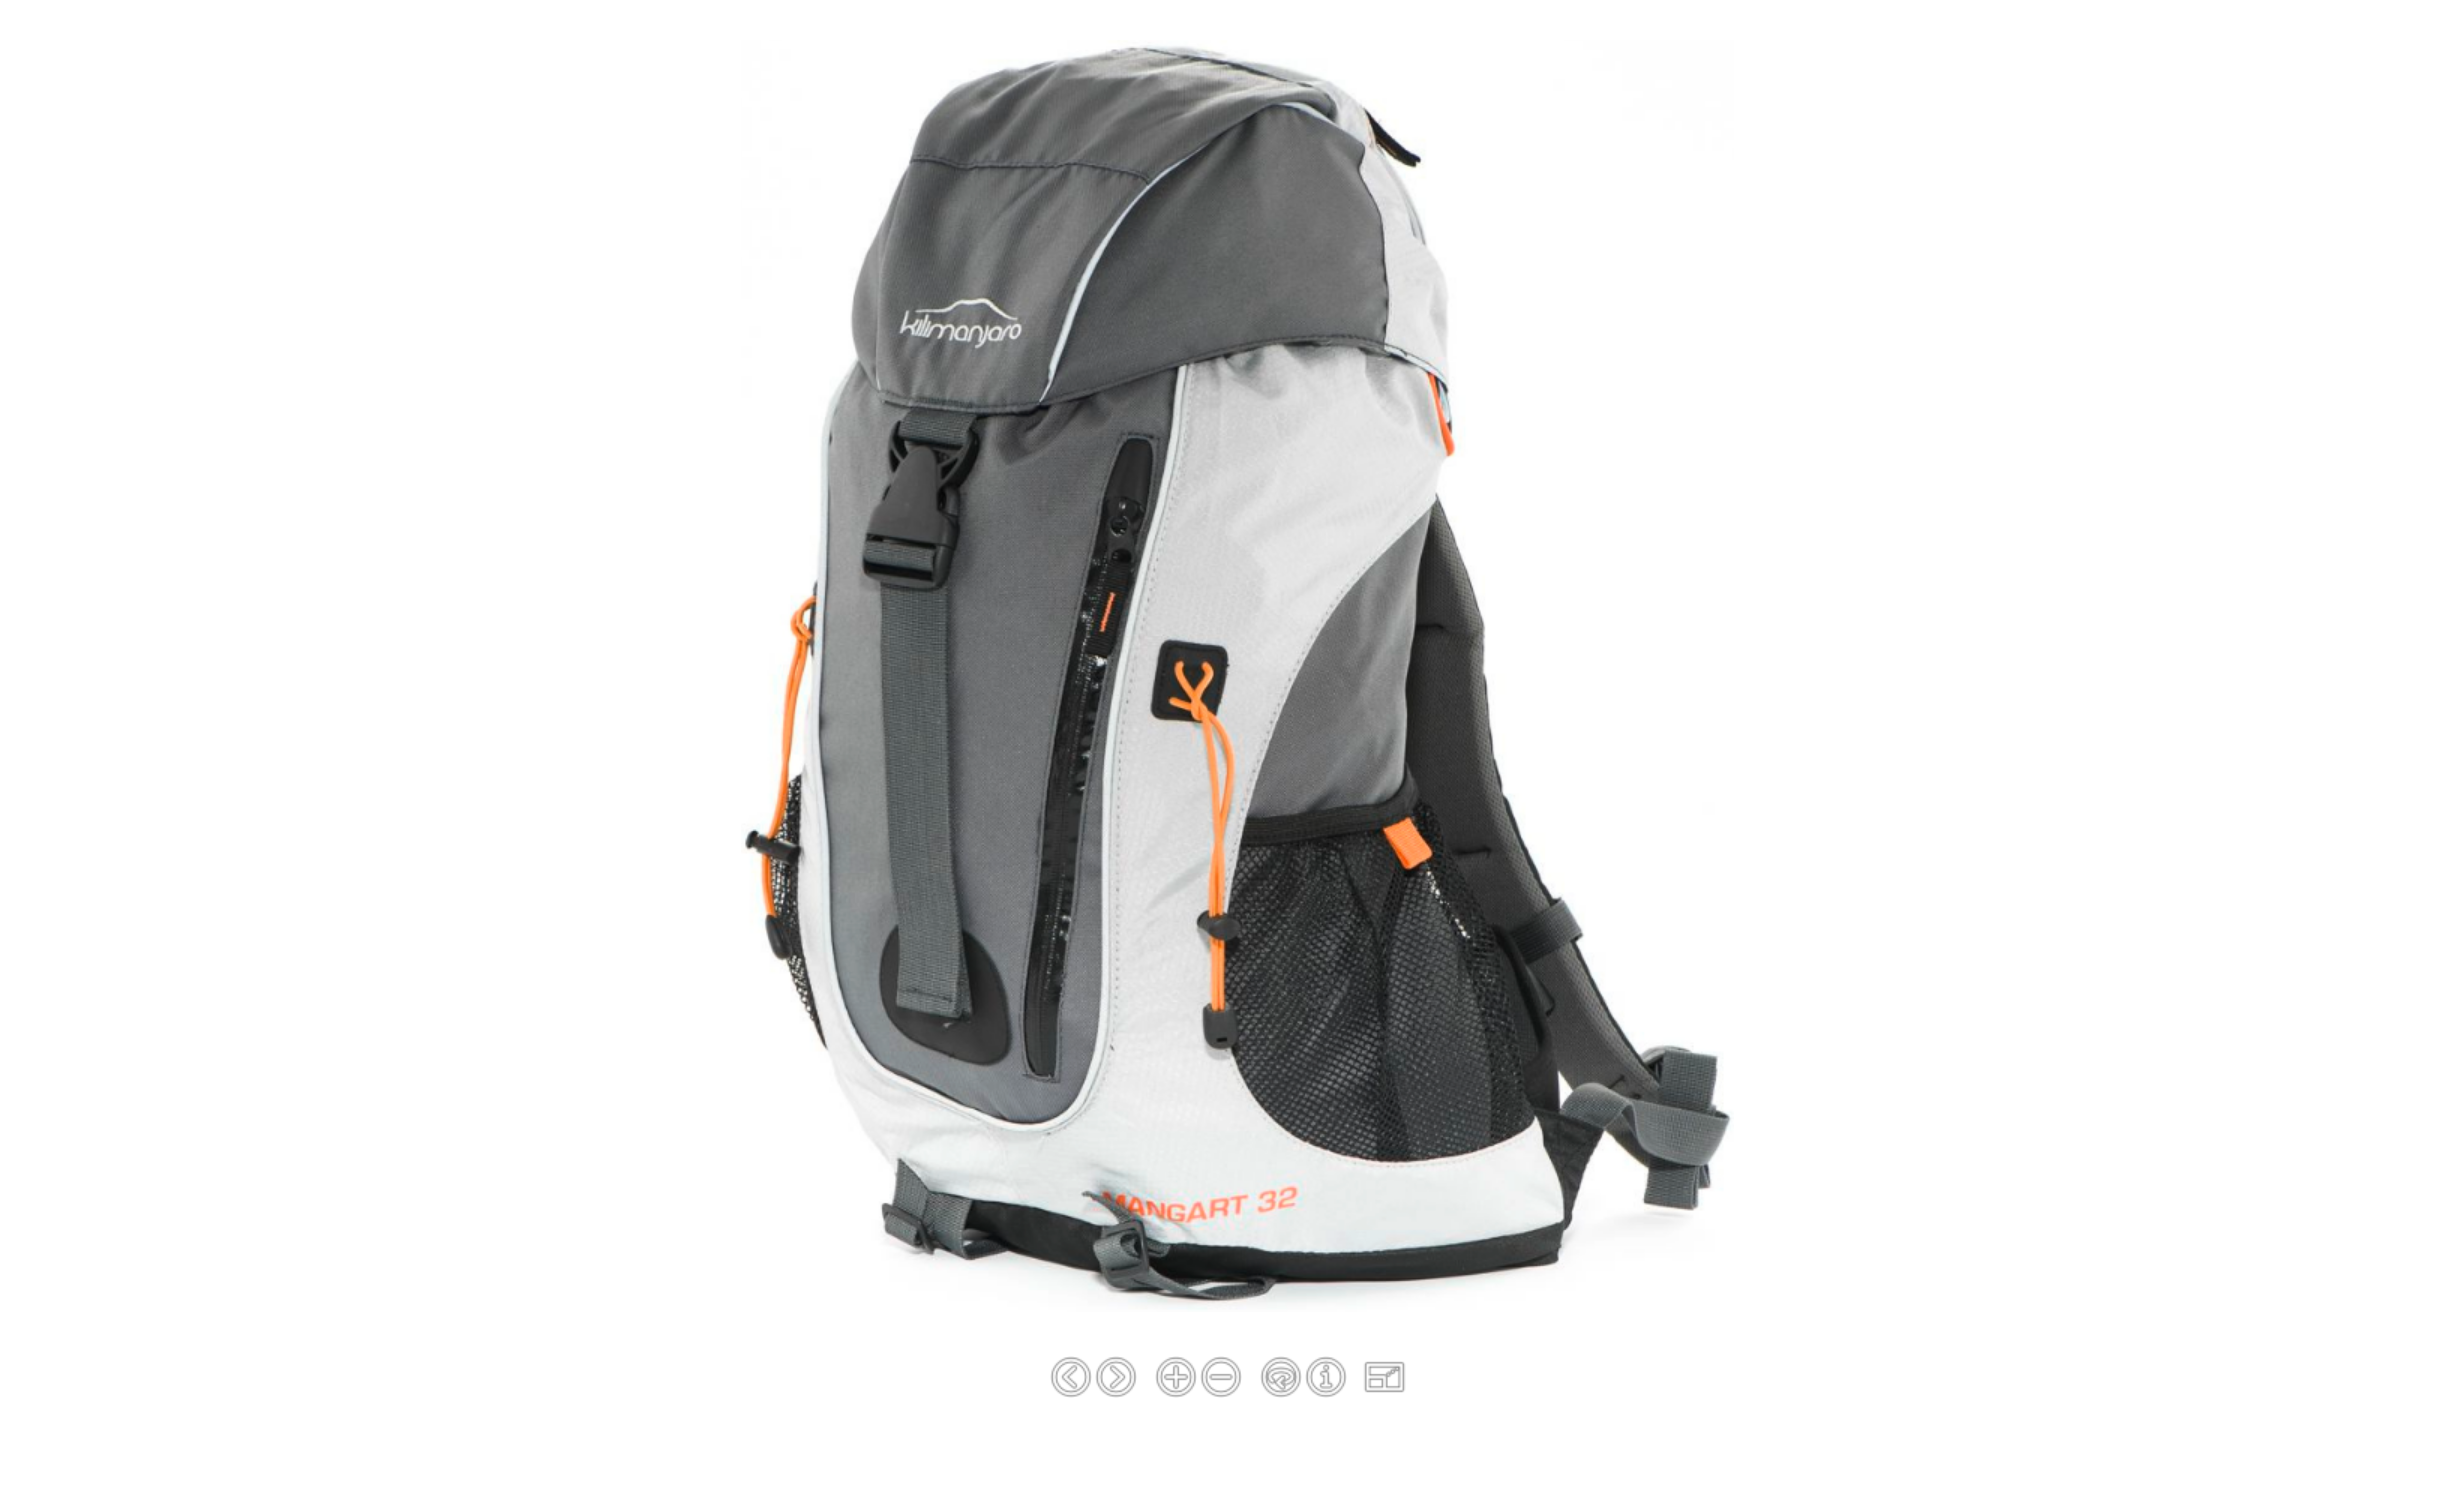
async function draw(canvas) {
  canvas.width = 2453
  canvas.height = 1488
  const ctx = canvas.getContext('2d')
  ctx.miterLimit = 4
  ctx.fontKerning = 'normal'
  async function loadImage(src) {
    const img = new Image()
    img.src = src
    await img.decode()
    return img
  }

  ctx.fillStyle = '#fff'
  ctx.fillRect(0, 0, 2453, 1488)
  ctx.drawImage(await loadImage('image0.png'), 741, 40, 993, 1272)
  ctx.drawImage(await loadImage('image1.png'), 1050, 1356, 42, 42)
  ctx.drawImage(await loadImage('image2.png'), 1095, 1356, 42, 42)
  ctx.drawImage(await loadImage('image3.png'), 1155, 1356, 42, 42)
  ctx.drawImage(await loadImage('image4.png'), 1200, 1356, 42, 42)
  ctx.drawImage(await loadImage('image5.png'), 1260, 1356, 42, 42)
  ctx.drawImage(await loadImage('image6.png'), 1305, 1356, 42, 42)
  ctx.drawImage(await loadImage('image7.png'), 1363, 1361, 43, 32)
}

draw(document.querySelector('canvas'))
